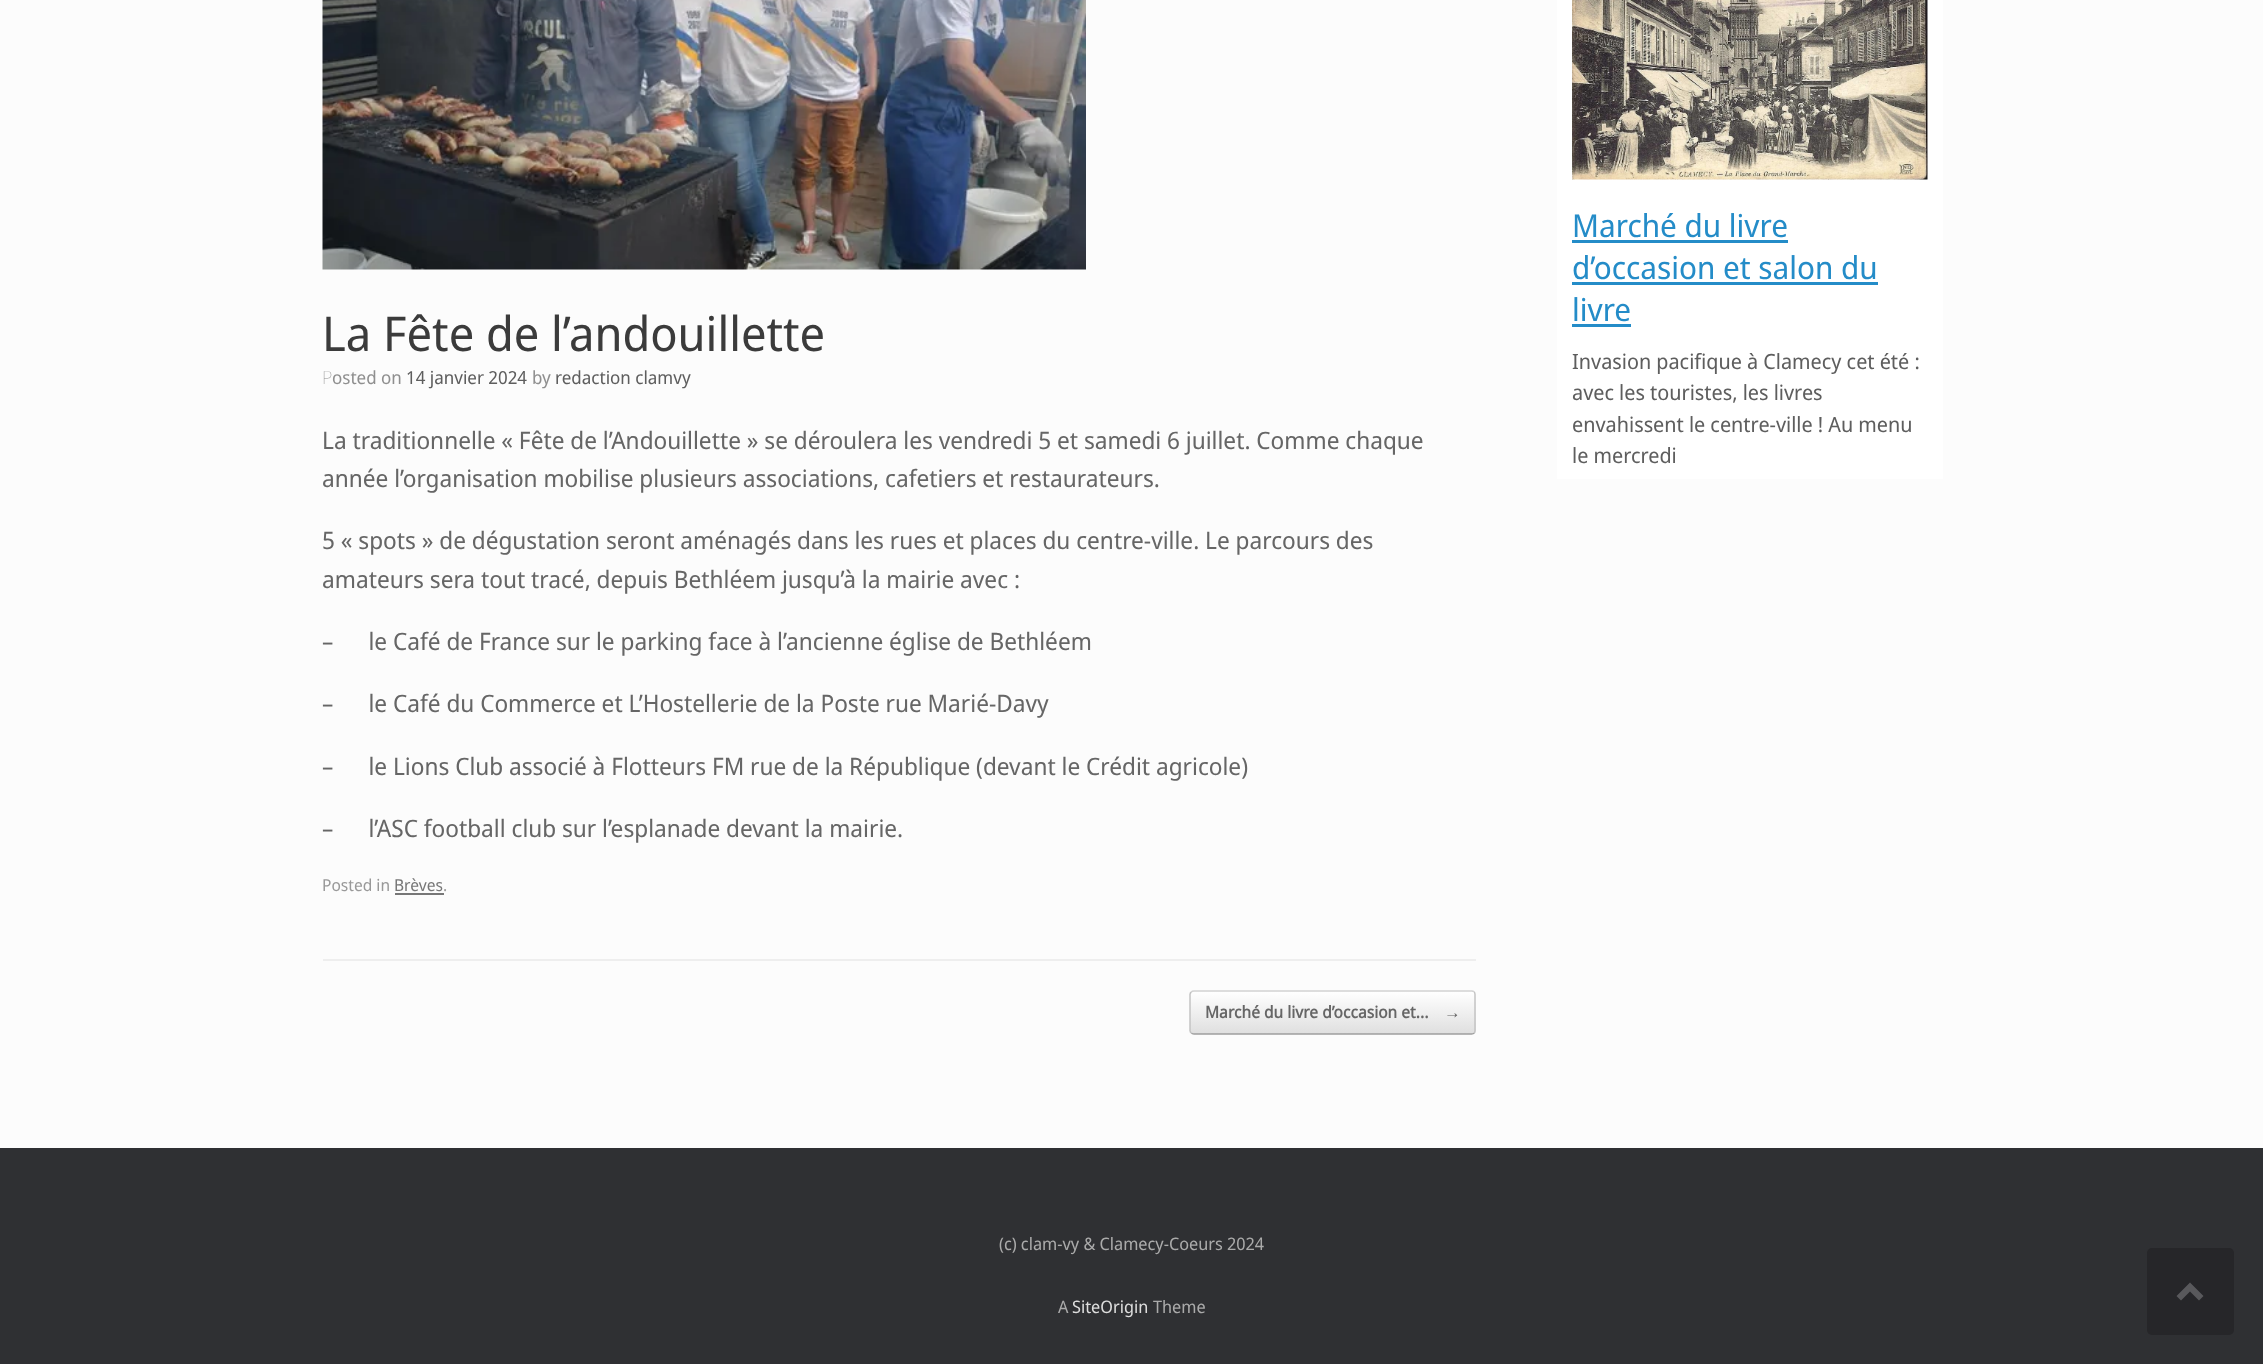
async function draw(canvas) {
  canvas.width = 2263
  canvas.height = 1364
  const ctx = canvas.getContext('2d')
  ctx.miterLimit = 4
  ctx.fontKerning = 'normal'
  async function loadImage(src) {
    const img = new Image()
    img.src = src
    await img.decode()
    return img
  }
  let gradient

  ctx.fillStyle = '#2f3033'
  ctx.fillRect(0, 0, 2263, 1364)
  ctx.fillStyle = '#fcfcfc'
  ctx.fillRect(0, 0, 2263, 1148)
  ctx.fillStyle = '#eee'
  ctx.fillRect(323, 959, 1153, 2)
  ctx.drawImage(await loadImage('image0.png'), 322, 0, 764, 270)
  ctx.font = '48px Noto Sans Display'
  ctx.fillStyle = '#3b3b3b'
  ctx.fillText('La Fête de l’andouillette', 322, 351)
  ctx.font = '100 18px Noto Sans'
  ctx.fillStyle = '#8f8f8f'
  ctx.fillText('P', 322, 384)
  ctx.font = '18px Noto Sans Display'
  ctx.fillText('osted on', 332, 384)
  ctx.fillStyle = '#5e5e5e'
  ctx.fillText('14 janvier 2024', 406, 384)
  ctx.fillStyle = '#8f8f8f'
  ctx.fillText('by', 532, 384)
  ctx.fillStyle = '#5e5e5e'
  ctx.fillText('redaction clamvy', 555, 384)
  ctx.font = '24px Noto Sans Display'
  ctx.fillStyle = '#666'
  ctx.fillText('La traditionnelle « Fête de l’Andouillette » se déroulera les vendredi 5 et samedi 6 juillet. Comme chaque', 322, 449)
  ctx.fillText('année l’organisation mobilise plusieurs associations, cafetiers et restaurateurs.', 322, 487)
  ctx.fillText('5 « spots » de dégustation seront aménagés dans les rues et places du centre-ville. Le parcours des', 322, 549)
  ctx.fillText('amateurs sera tout tracé, depuis Bethléem jusqu’à la mairie avec :', 322, 588)
  ctx.fillText('–      le Café de France sur le parking face à l’ancienne église de Bethléem', 322, 650)
  ctx.fillText('–      le Café du Commerce et L’Hostellerie de la Poste rue Marié-Davy', 322, 712)
  ctx.fillText('–      le Lions Club associé à Flotteurs FM rue de la République (devant le Crédit agricole)', 322, 775)
  ctx.fillText('–      l’ASC football club sur l’esplanade devant la mairie.', 322, 837)
  ctx.font = '16.5px Noto Sans Display'
  ctx.fillStyle = '#999'
  ctx.fillText('Posted in', 322, 891)
  ctx.fillStyle = '#777'
  ctx.fillText('Brèves', 394, 891)
  ctx.fillRect(395, 893, 49, 2)
  ctx.fillStyle = '#999'
  ctx.fillText('.', 443, 891)
  ctx.save()
  ctx.beginPath()
  ctx.roundRect(1190, 990, 286, 45, 5)
  ctx.clip()
  gradient = ctx.createLinearGradient(1191, 1034, 1191, 992)
  gradient.addColorStop(0, '#dfdfdf')
  gradient.addColorStop(1, '#fff')
  ctx.fillStyle = gradient
  ctx.fillRect(1190, 992, 286, 42)
  ctx.restore()
  ctx.beginPath()
  ctx.moveTo(1191.5, 992)
  ctx.bezierCurveTo(1192, 991, 1193, 991, 1194, 991)
  ctx.lineTo(1471.5, 991)
  ctx.bezierCurveTo(1472.5, 991, 1473.5, 991, 1474, 992)
  ctx.strokeStyle = '#d2d2d2'
  ctx.lineWidth = 1.5
  ctx.stroke()
  ctx.beginPath()
  ctx.moveTo(1474, 992)
  ctx.bezierCurveTo(1475, 992.5, 1475, 993.5, 1475, 994.5)
  ctx.lineTo(1475, 1030.5)
  ctx.bezierCurveTo(1475, 1031.5, 1475, 1032.5, 1474, 1033)
  ctx.strokeStyle = '#c3c3c3'
  ctx.stroke()
  ctx.beginPath()
  ctx.moveTo(1474, 1033)
  ctx.bezierCurveTo(1473.5, 1034, 1472.5, 1034, 1471.5, 1034)
  ctx.lineTo(1194, 1034)
  ctx.bezierCurveTo(1193, 1034, 1192, 1034, 1191.5, 1033)
  ctx.strokeStyle = '#9f9f9f'
  ctx.stroke()
  ctx.beginPath()
  ctx.moveTo(1191.5, 1033)
  ctx.bezierCurveTo(1190.5, 1032.5, 1190, 1031.5, 1190, 1030.5)
  ctx.lineTo(1190, 994.5)
  ctx.bezierCurveTo(1190, 993.5, 1190.5, 992.5, 1191.5, 992)
  ctx.strokeStyle = '#c3c3c3'
  ctx.stroke()
  ctx.font = 'bold 16.5px Noto Sans Display'
  ctx.fillStyle = '#666'
  ctx.fillText('Marché du livre d’occasion et…', 1205, 1018)
  ctx.font = 'bold 16.5px Liberation Serif'
  ctx.fillText('→', 1444, 1018)
  ctx.fillStyle = '#fff'
  ctx.fillRect(1557, 0, 386, 479)
  ctx.drawImage(await loadImage('image1.png'), 1572, 0, 356, 180)
  ctx.font = '31.5px Noto Sans Display'
  ctx.fillStyle = '#248cc8'
  ctx.fillText('Marché du livre', 1572, 237)
  ctx.fillRect(1572, 240, 216, 3)
  ctx.fillText('d’occasion et salon du', 1572, 279)
  ctx.fillRect(1572, 282, 306, 3)
  ctx.fillText('livre', 1572, 321)
  ctx.fillRect(1572, 324, 59, 3)
  ctx.font = '21px Noto Sans Display'
  ctx.fillStyle = '#5e5e5e'
  ctx.fillText('Invasion pacifique à Clamecy cet été :', 1572, 369)
  ctx.fillText('avec les touristes, les livres', 1572, 400)
  ctx.fillText('envahissent le centre-ville ! Au menu', 1572, 432)
  ctx.fillText('le mercredi', 1572, 463)
  ctx.font = '17.25px Noto Sans Display'
  ctx.fillStyle = '#aaa'
  ctx.fillText('(c) clam-vy & Clamecy-Coeurs 2024', 999, 1250)
  ctx.fillText('A', 1058, 1313)
  ctx.fillStyle = '#ddd'
  ctx.fillText('SiteOrigin', 1072, 1313)
  ctx.fillStyle = '#aaa'
  ctx.fillText('Theme', 1153, 1313)
  ctx.fillStyle = '#262629'
  ctx.beginPath()
  ctx.roundRect(2147, 1248, 87, 87, 5)
  ctx.fill()
  ctx.fillStyle = '#59595c'
  ctx.beginPath()
  ctx.moveTo(2203.5, 1296)
  ctx.lineTo(2190, 1282.5)
  ctx.lineTo(2176.5, 1296)
  ctx.lineTo(2181, 1300.5)
  ctx.lineTo(2190, 1291.5)
  ctx.lineTo(2199, 1300.5)
  ctx.closePath()
  ctx.fill()
}

draw(document.querySelector('canvas'))
